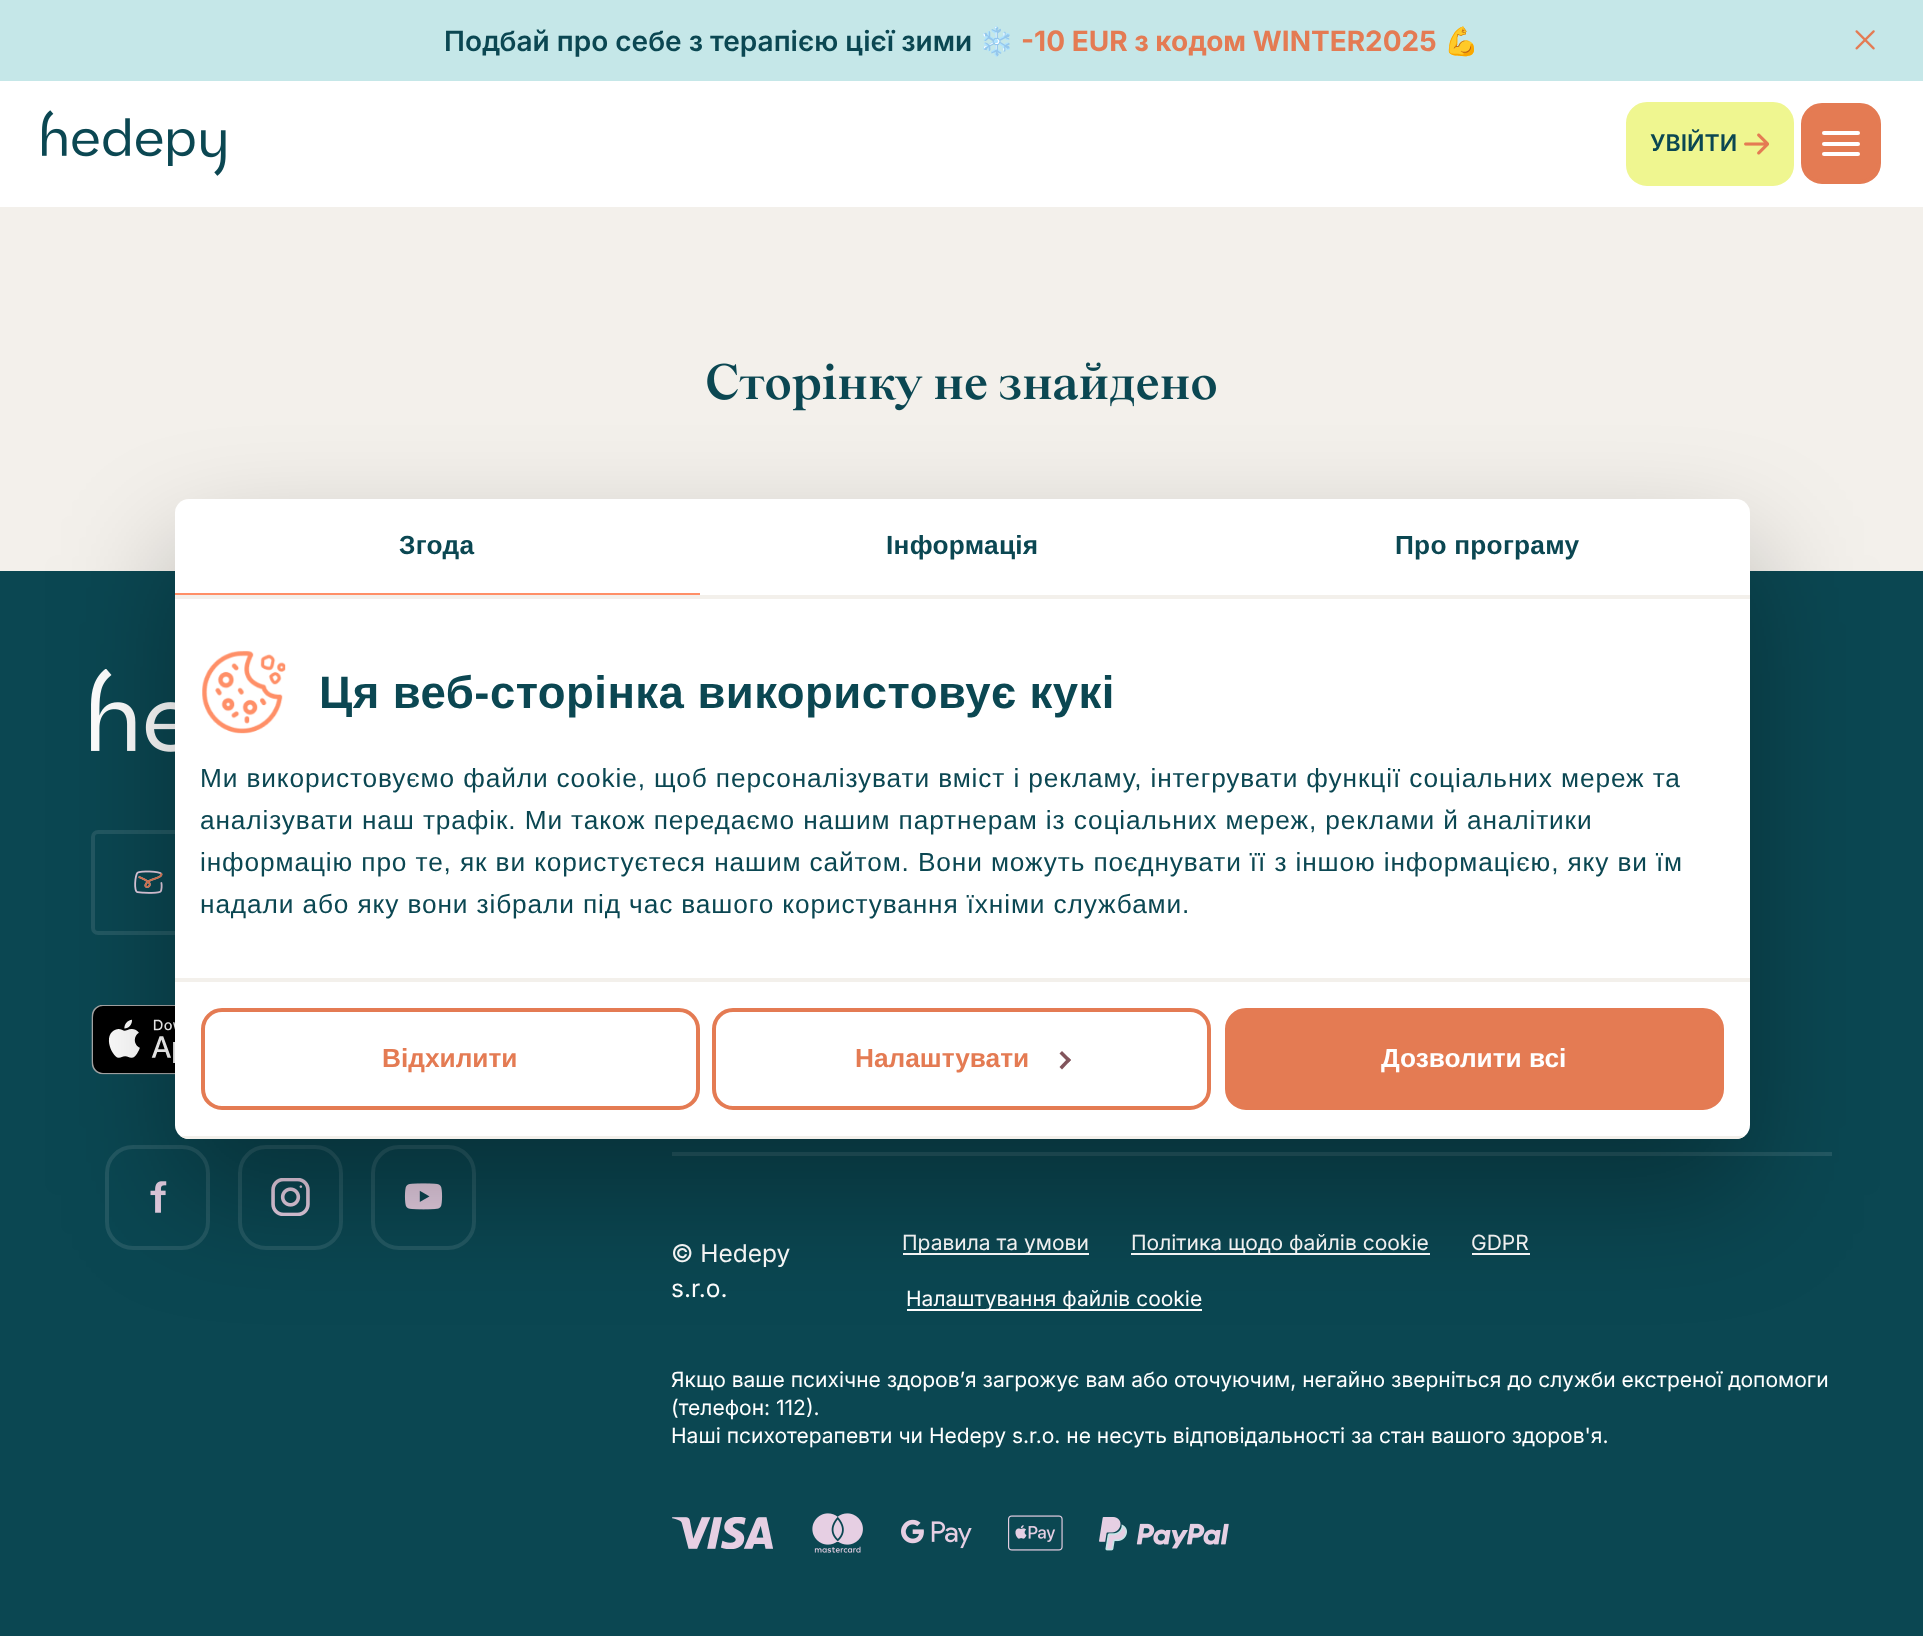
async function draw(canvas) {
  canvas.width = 1923
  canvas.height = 1636
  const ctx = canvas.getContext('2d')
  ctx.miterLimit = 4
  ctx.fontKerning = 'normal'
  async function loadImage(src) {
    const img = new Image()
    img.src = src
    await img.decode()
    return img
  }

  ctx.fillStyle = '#f3f0eb'
  ctx.fillRect(0, 0, 1923, 1636)
  ctx.fillStyle = '#c5e7e8'
  ctx.fillRect(0, 0, 1923, 81)
  ctx.font = '600 28px Inter'
  ctx.fillStyle = '#0b4752'
  ctx.fillText('Подбай про себе з терапією цієї зими', 444, 51)
  ctx.font = 'bold 28px Noto Color Emoji'
  ctx.fillText('❄️', 979, 51)
  ctx.font = 'bold 28px Inter'
  ctx.fillStyle = '#e47b53'
  ctx.fillText('-10 EUR з кодом WINTER2025', 1021, 51)
  ctx.font = 'bold 28px Noto Color Emoji'
  ctx.fillStyle = '#0b4752'
  ctx.fillText('💪', 1444, 51)
  ctx.drawImage(await loadImage('image0.png'), 1855, 30, 20, 20)
  ctx.fillStyle = '#fff'
  ctx.fillRect(0, 81, 1923, 126)
  ctx.drawImage(await loadImage('image1.png'), 42, 110, 184, 66)
  ctx.fillStyle = '#eff690'
  ctx.beginPath()
  ctx.roundRect(1628, 104, 164, 80, 19)
  ctx.fill()
  ctx.strokeStyle = '#eff690'
  ctx.lineWidth = 4
  ctx.stroke()
  ctx.font = '600 23px Inter'
  ctx.fillStyle = '#0b4752'
  ctx.fillText('УВІЙТИ', 1650, 151)
  ctx.drawImage(await loadImage('image2.png'), 1744, 133, 25, 22)
  ctx.fillStyle = '#e47b53'
  ctx.beginPath()
  ctx.roundRect(1803, 105, 76, 77, 19)
  ctx.fill()
  ctx.strokeStyle = '#e47b53'
  ctx.stroke()
  ctx.fillStyle = '#fff'
  ctx.beginPath()
  ctx.roundRect(1822, 131, 38, 4, 2)
  ctx.fill()
  ctx.beginPath()
  ctx.roundRect(1822, 142, 38, 4, 2)
  ctx.fill()
  ctx.beginPath()
  ctx.roundRect(1822, 152, 38, 4, 2)
  ctx.fill()
  ctx.drawImage(await loadImage('image3.png'), 707, 362, 509, 49)
  ctx.fillStyle = '#0b4752'
  ctx.fillRect(0, 571, 1923, 1065)
  ctx.drawImage(await loadImage('image4.png'), 91, 669, 84, 83)
  ctx.beginPath()
  ctx.roundRect(93, 832, 507, 101, 5)
  ctx.strokeStyle = '#235963'
  ctx.stroke()
  ctx.drawImage(await loadImage('image5.png'), 134, 870, 29, 24)
  ctx.drawImage(await loadImage('image6.png'), 91, 1005, 84, 70)
  ctx.beginPath()
  ctx.roundRect(107, 1147, 101, 101, 26)
  ctx.stroke()
  ctx.drawImage(await loadImage('image7.png'), 150, 1181, 17, 32)
  ctx.beginPath()
  ctx.roundRect(240, 1147, 101, 101, 26)
  ctx.stroke()
  ctx.drawImage(await loadImage('image8.png'), 271, 1178, 39, 38)
  ctx.beginPath()
  ctx.roundRect(373, 1147, 101, 101, 26)
  ctx.stroke()
  ctx.drawImage(await loadImage('image9.png'), 404, 1183, 39, 27)
  ctx.fillStyle = '#235963'
  ctx.fillRect(672, 1152, 1160, 4)
  ctx.font = '24.5px Inter'
  ctx.fillStyle = '#fff'
  ctx.fillText('© Hedepy', 671, 1262)
  ctx.fillText('s.r.o.', 671, 1297)
  ctx.fillRect(903, 1253, 186, 2)
  ctx.font = '21px Inter'
  ctx.fillText('Правила та умови', 902, 1250)
  ctx.fillRect(1131, 1253, 299, 2)
  ctx.fillText('Політика щодо файлів cookie', 1131, 1250)
  ctx.fillText('GDPR', 1471, 1250)
  ctx.fillRect(1472, 1253, 58, 2)
  ctx.fillRect(907, 1309, 295, 2)
  ctx.fillText('Налаштування файлів cookie', 906, 1306)
  ctx.fillText('Якщо ваше психічне здоров’я загрожує вам або оточуючим, негайно зверніться до служби екстреної допомоги', 671, 1387)
  ctx.fillText('(телефон: 112).', 671, 1415)
  ctx.fillText('Наші психотерапевти чи Hedepy s.r.o. не несуть відповідальності за стан вашого здоров\'я.', 671, 1443)
  ctx.drawImage(await loadImage('image10.png'), 672, 1517, 101, 32)
  ctx.drawImage(await loadImage('image11.png'), 812, 1513, 51, 40)
  ctx.drawImage(await loadImage('image12.png'), 901, 1519, 71, 30)
  ctx.drawImage(await loadImage('image13.png'), 1008, 1515, 55, 36)
  ctx.drawImage(await loadImage('image14.png'), 1099, 1517, 130, 34)
  ctx.fillStyle = '#0000004d'
  ctx.filter = 'blur(59.5px)'
  ctx.beginPath()
  ctx.roundRect(175, 555, 1575, 640, 14)
  ctx.fill()
  ctx.filter = 'none'
  ctx.fillStyle = '#fff'
  ctx.beginPath()
  ctx.roundRect(175, 499, 1575, 640, 14)
  ctx.fill()
  ctx.fillStyle = '#f3f0eb'
  ctx.fillRect(175, 595, 1575, 4)
  ctx.fillStyle = '#ff8f67'
  ctx.fillRect(175, 593, 525, 2)
  ctx.letterSpacing = '0.25px'
  ctx.font = 'bold 26.25px Liberation Sans'
  ctx.fillStyle = '#0b4752'
  ctx.fillText('Згода', 399, 554)
  ctx.fillText('Інформація', 886, 554)
  ctx.fillText('Про програму', 1395, 554)
  ctx.fillStyle = '#f3f0eb'
  ctx.fillRect(175, 978, 1575, 4)
  ctx.drawImage(await loadImage('image15.png'), 202, 650, 84, 84)
  ctx.letterSpacing = '0.45px'
  ctx.font = 'bold 45.5px Liberation Sans'
  ctx.fillStyle = '#0b4752'
  ctx.fillText('Ця веб-сторінка використовує кукі', 319, 708)
  ctx.letterSpacing = '0.88px'
  ctx.font = '26.25px Liberation Sans'
  ctx.fillText('Ми використовуємо файли cookie, щоб персоналізувати вміст і рекламу, інтегрувати функції соціальних мереж та', 200, 787)
  ctx.fillText('аналізувати наш трафік. Ми також передаємо нашим партнерам із соціальних мереж, реклами й аналітики', 200, 829)
  ctx.fillText('інформацію про те, як ви користуєтеся нашим сайтом. Вони можуть поєднувати її з іншою інформацією, яку ви їм', 200, 871)
  ctx.fillText('надали або яку вони зібрали під час вашого користування їхніми службами.', 200, 913)
  ctx.save()
  ctx.beginPath()
  ctx.roundRect(175, 499, 1575, 640, 14)
  ctx.clip()
  ctx.fillStyle = '#f3f0eb'
  ctx.fillRect(175, 1136, 1575, 3)
  ctx.restore()
  ctx.beginPath()
  ctx.roundRect(203, 1010, 495, 98, 19)
  ctx.strokeStyle = '#e47b53'
  ctx.stroke()
  ctx.letterSpacing = '0px'
  ctx.font = 'bold 26.25px Liberation Sans'
  ctx.fillStyle = '#e47b53'
  ctx.fillText('Відхилити', 382, 1067)
  ctx.beginPath()
  ctx.roundRect(714, 1010, 495, 98, 19)
  ctx.stroke()
  ctx.fillText('Налаштувати', 855, 1067)
  ctx.fillStyle = '#82555c'
  ctx.beginPath()
  ctx.moveTo(1062, 1051)
  ctx.lineTo(1071, 1060)
  ctx.lineTo(1068.5, 1062.5)
  ctx.lineTo(1059.5, 1053.5)
  ctx.closePath()
  ctx.fill()
  ctx.beginPath()
  ctx.moveTo(1068.5, 1057.5)
  ctx.lineTo(1071, 1060)
  ctx.lineTo(1062, 1069.5)
  ctx.lineTo(1059.5, 1067)
  ctx.closePath()
  ctx.fill()
  ctx.fillStyle = '#e47b53'
  ctx.beginPath()
  ctx.roundRect(1227, 1010, 495, 98, 19)
  ctx.fill()
  ctx.stroke()
  ctx.fillStyle = '#fff'
  ctx.fillText('Дозволити всі', 1381, 1067)
}

draw(document.querySelector('canvas'))
